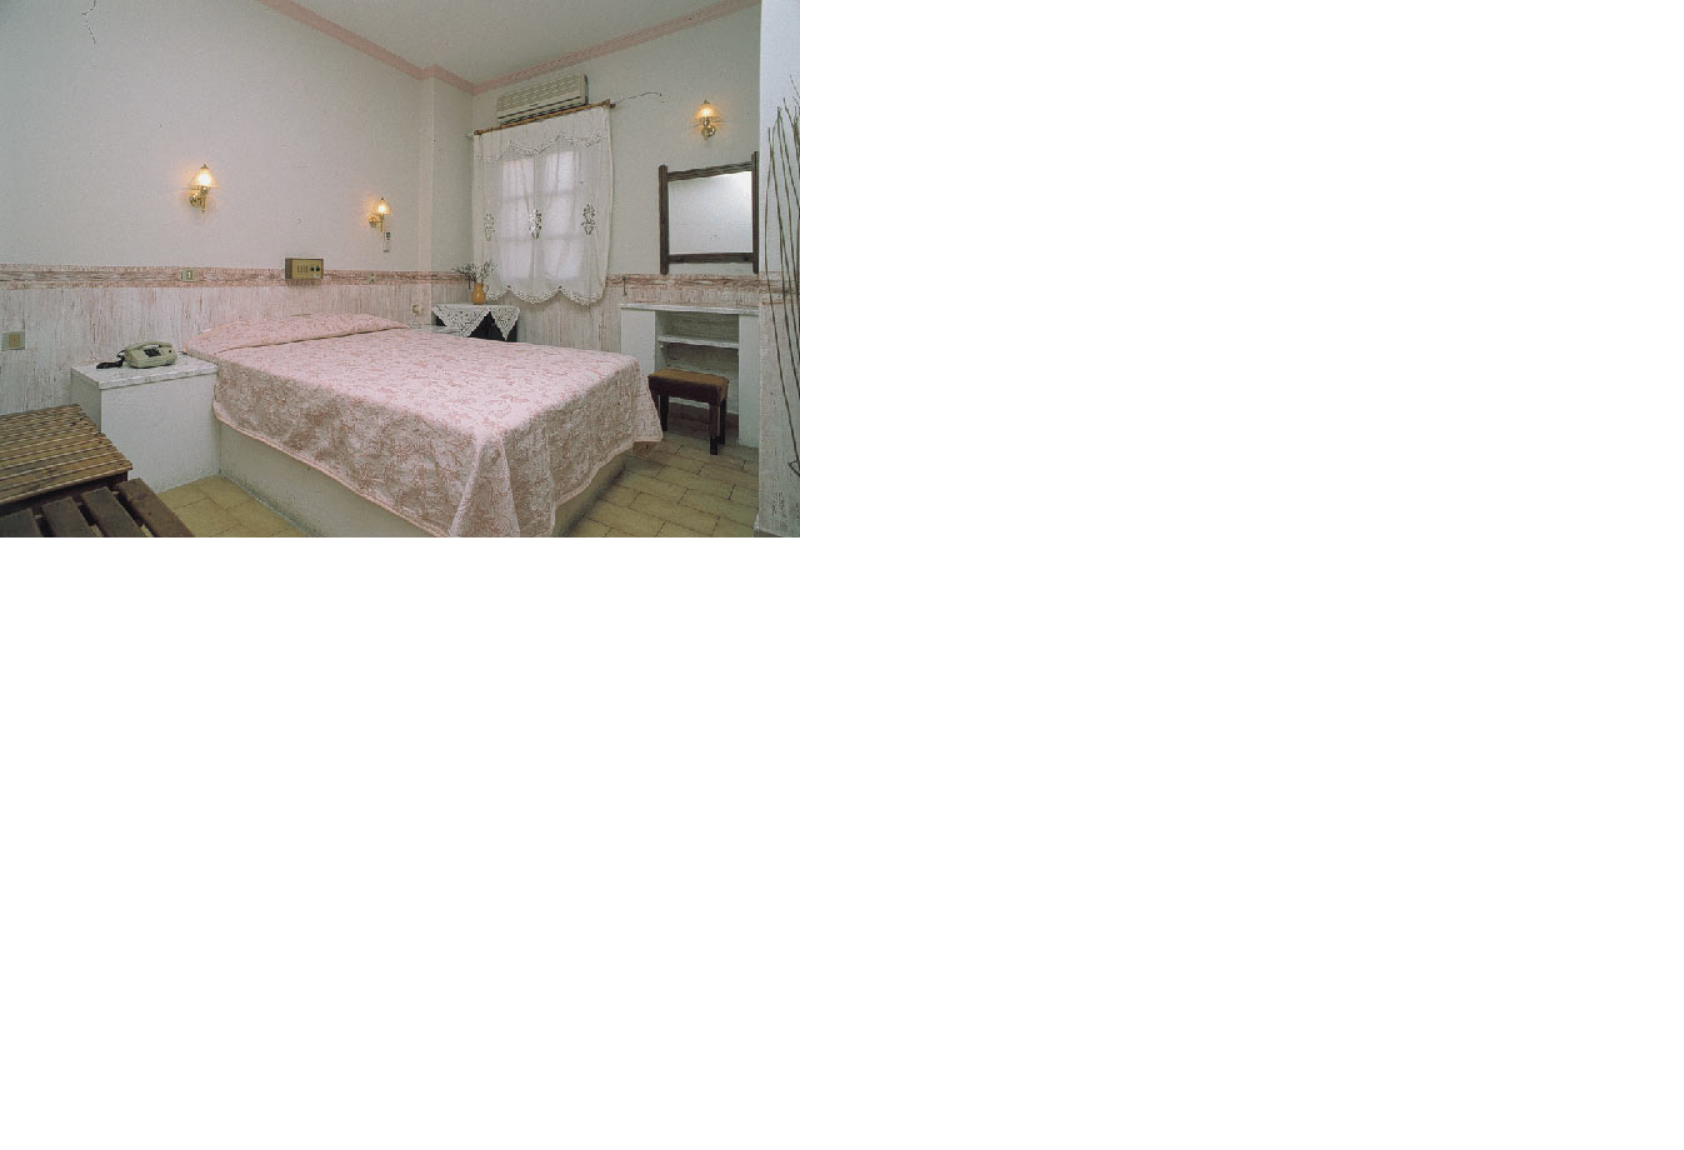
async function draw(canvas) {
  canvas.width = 1684
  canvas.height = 1150
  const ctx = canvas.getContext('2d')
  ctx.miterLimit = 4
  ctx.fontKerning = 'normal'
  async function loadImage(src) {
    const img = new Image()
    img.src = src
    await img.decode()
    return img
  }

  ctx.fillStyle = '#fff'
  ctx.fillRect(0, 0, 1684, 1150)
  ctx.drawImage(await loadImage('image0.png'), 0, 0, 800, 538)
}

draw(document.querySelector('canvas'))
